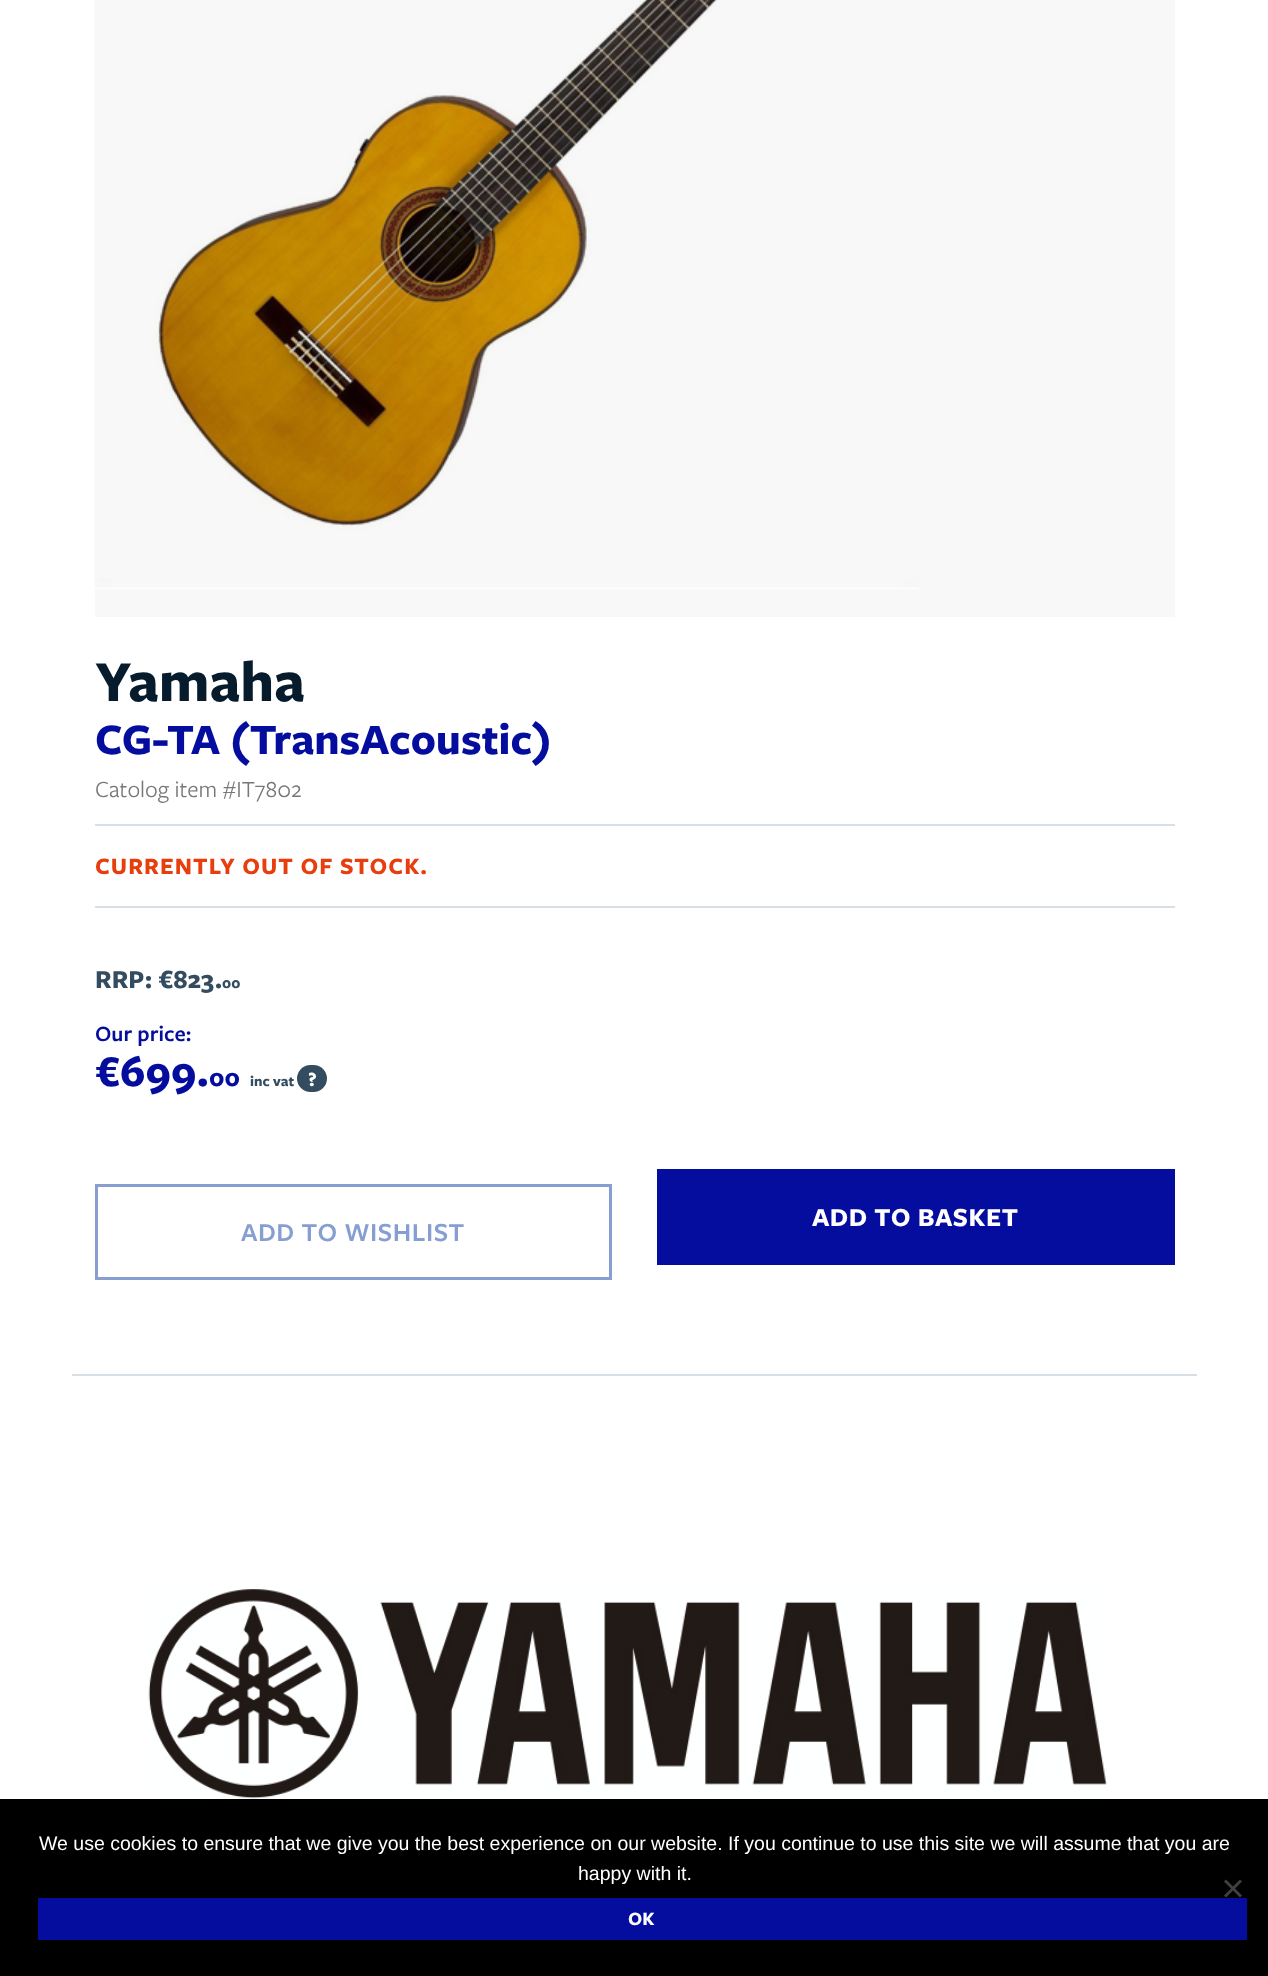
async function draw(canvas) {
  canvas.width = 1268
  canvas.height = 1976
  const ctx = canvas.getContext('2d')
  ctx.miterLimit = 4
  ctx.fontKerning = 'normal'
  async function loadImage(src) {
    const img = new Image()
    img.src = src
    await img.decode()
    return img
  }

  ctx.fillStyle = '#fff'
  ctx.fillRect(0, 0, 1268, 1976)
  ctx.fillStyle = '#f8f8f8'
  ctx.fillRect(95, 0, 1080, 617)
  ctx.drawImage(await loadImage('image0.png'), 94, 0, 825, 589)
  ctx.fillStyle = '#d8dfe4'
  ctx.fillRect(95, 824, 1080, 2)
  ctx.font = 'bold 60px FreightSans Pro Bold'
  ctx.fillStyle = '#061b2b'
  ctx.fillText('Yamaha', 95, 701)
  ctx.font = 'bold 45px FreightSans Pro Bold'
  ctx.fillStyle = '#050d9e'
  ctx.fillText('CG-TA (TransAcoustic)', 95, 754)
  ctx.font = '24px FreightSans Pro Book'
  ctx.fillStyle = '#777'
  ctx.fillText('Catolog item #IT7802', 95, 797)
  ctx.fillStyle = '#d8dfe4'
  ctx.fillRect(95, 906, 1080, 2)
  ctx.letterSpacing = '1px'
  ctx.font = 'bold 24.25px FreightSans Pro Bold'
  ctx.fillStyle = '#e83d0d'
  ctx.fillText('CURRENTLY OUT OF STOCK.', 95, 874)
  ctx.letterSpacing = '0px'
  ctx.font = 'bold 27px FreightSans Pro Bold'
  ctx.fillStyle = '#334c5f'
  ctx.fillText('RRP: €823.', 95, 988)
  ctx.font = 'bold 16px FreightSans Pro Bold'
  ctx.fillText('00', 222, 988)
  ctx.font = '600 22.5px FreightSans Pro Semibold'
  ctx.fillStyle = '#050d9e'
  ctx.fillText('Our price:', 95, 1041)
  ctx.font = 'bold 45px FreightSans Pro Bold'
  ctx.fillText('€699.', 95, 1086)
  ctx.font = 'bold 27px FreightSans Pro Bold'
  ctx.fillText('00', 209, 1086)
  ctx.font = 'bold 15px FreightSans Pro Bold'
  ctx.fillStyle = '#334c5f'
  ctx.fillText('inc vat', 250, 1086)
  ctx.beginPath()
  ctx.roundRect(297, 1065, 30, 27, 13.5)
  ctx.fill()
  ctx.font = 'bold 21px FreightSans Pro Bold'
  ctx.fillStyle = '#fff'
  ctx.fillText('?', 308, 1086)
  ctx.fillStyle = '#050d9e'
  ctx.fillRect(657, 1169, 518, 96)
  ctx.letterSpacing = '0.5px'
  ctx.font = 'bold 27px FreightSans Pro Bold'
  ctx.fillStyle = '#fff'
  ctx.fillText('ADD TO BASKET', 812, 1226)
  ctx.strokeStyle = '#869ed1'
  ctx.lineWidth = 3
  ctx.strokeRect(96.5, 1185.5, 514, 93)
  ctx.font = '600 27px FreightSans Pro Semibold'
  ctx.fillStyle = '#869ed1'
  ctx.fillText('ADD TO WISHLIST', 241, 1241)
  ctx.fillStyle = '#d8dfe4'
  ctx.fillRect(72, 1374, 1125, 2)
  ctx.drawImage(await loadImage('image1.png'), 148, 1589, 959, 210)
  ctx.fillStyle = '#000'
  ctx.fillRect(0, 1799, 1268, 177)
  ctx.letterSpacing = '0px'
  ctx.font = '19.5px Liberation Sans'
  ctx.fillStyle = '#fff'
  ctx.fillText('We use cookies to ensure that we give you the best experience on our website. If you continue to use this site we will assume that you are', 39, 1850)
  ctx.fillText('happy with it.', 578, 1880)
  ctx.fillStyle = '#404040'
  ctx.beginPath()
  ctx.moveTo(1240, 1879.5)
  ctx.lineTo(1242, 1881.5)
  ctx.lineTo(1226, 1897.5)
  ctx.lineTo(1224, 1895.5)
  ctx.closePath()
  ctx.fill()
  ctx.beginPath()
  ctx.moveTo(1224, 1881.5)
  ctx.lineTo(1226, 1879.5)
  ctx.lineTo(1242, 1895.5)
  ctx.lineTo(1240, 1897.5)
  ctx.closePath()
  ctx.fill()
  ctx.fillStyle = '#050d9e'
  ctx.fillRect(38, 1898, 1209, 42)
  ctx.font = 'bold 19.5px FreightSans Pro Bold'
  ctx.fillStyle = '#fff'
  ctx.fillText('OK', 628, 1925)
}

draw(document.querySelector('canvas'))
